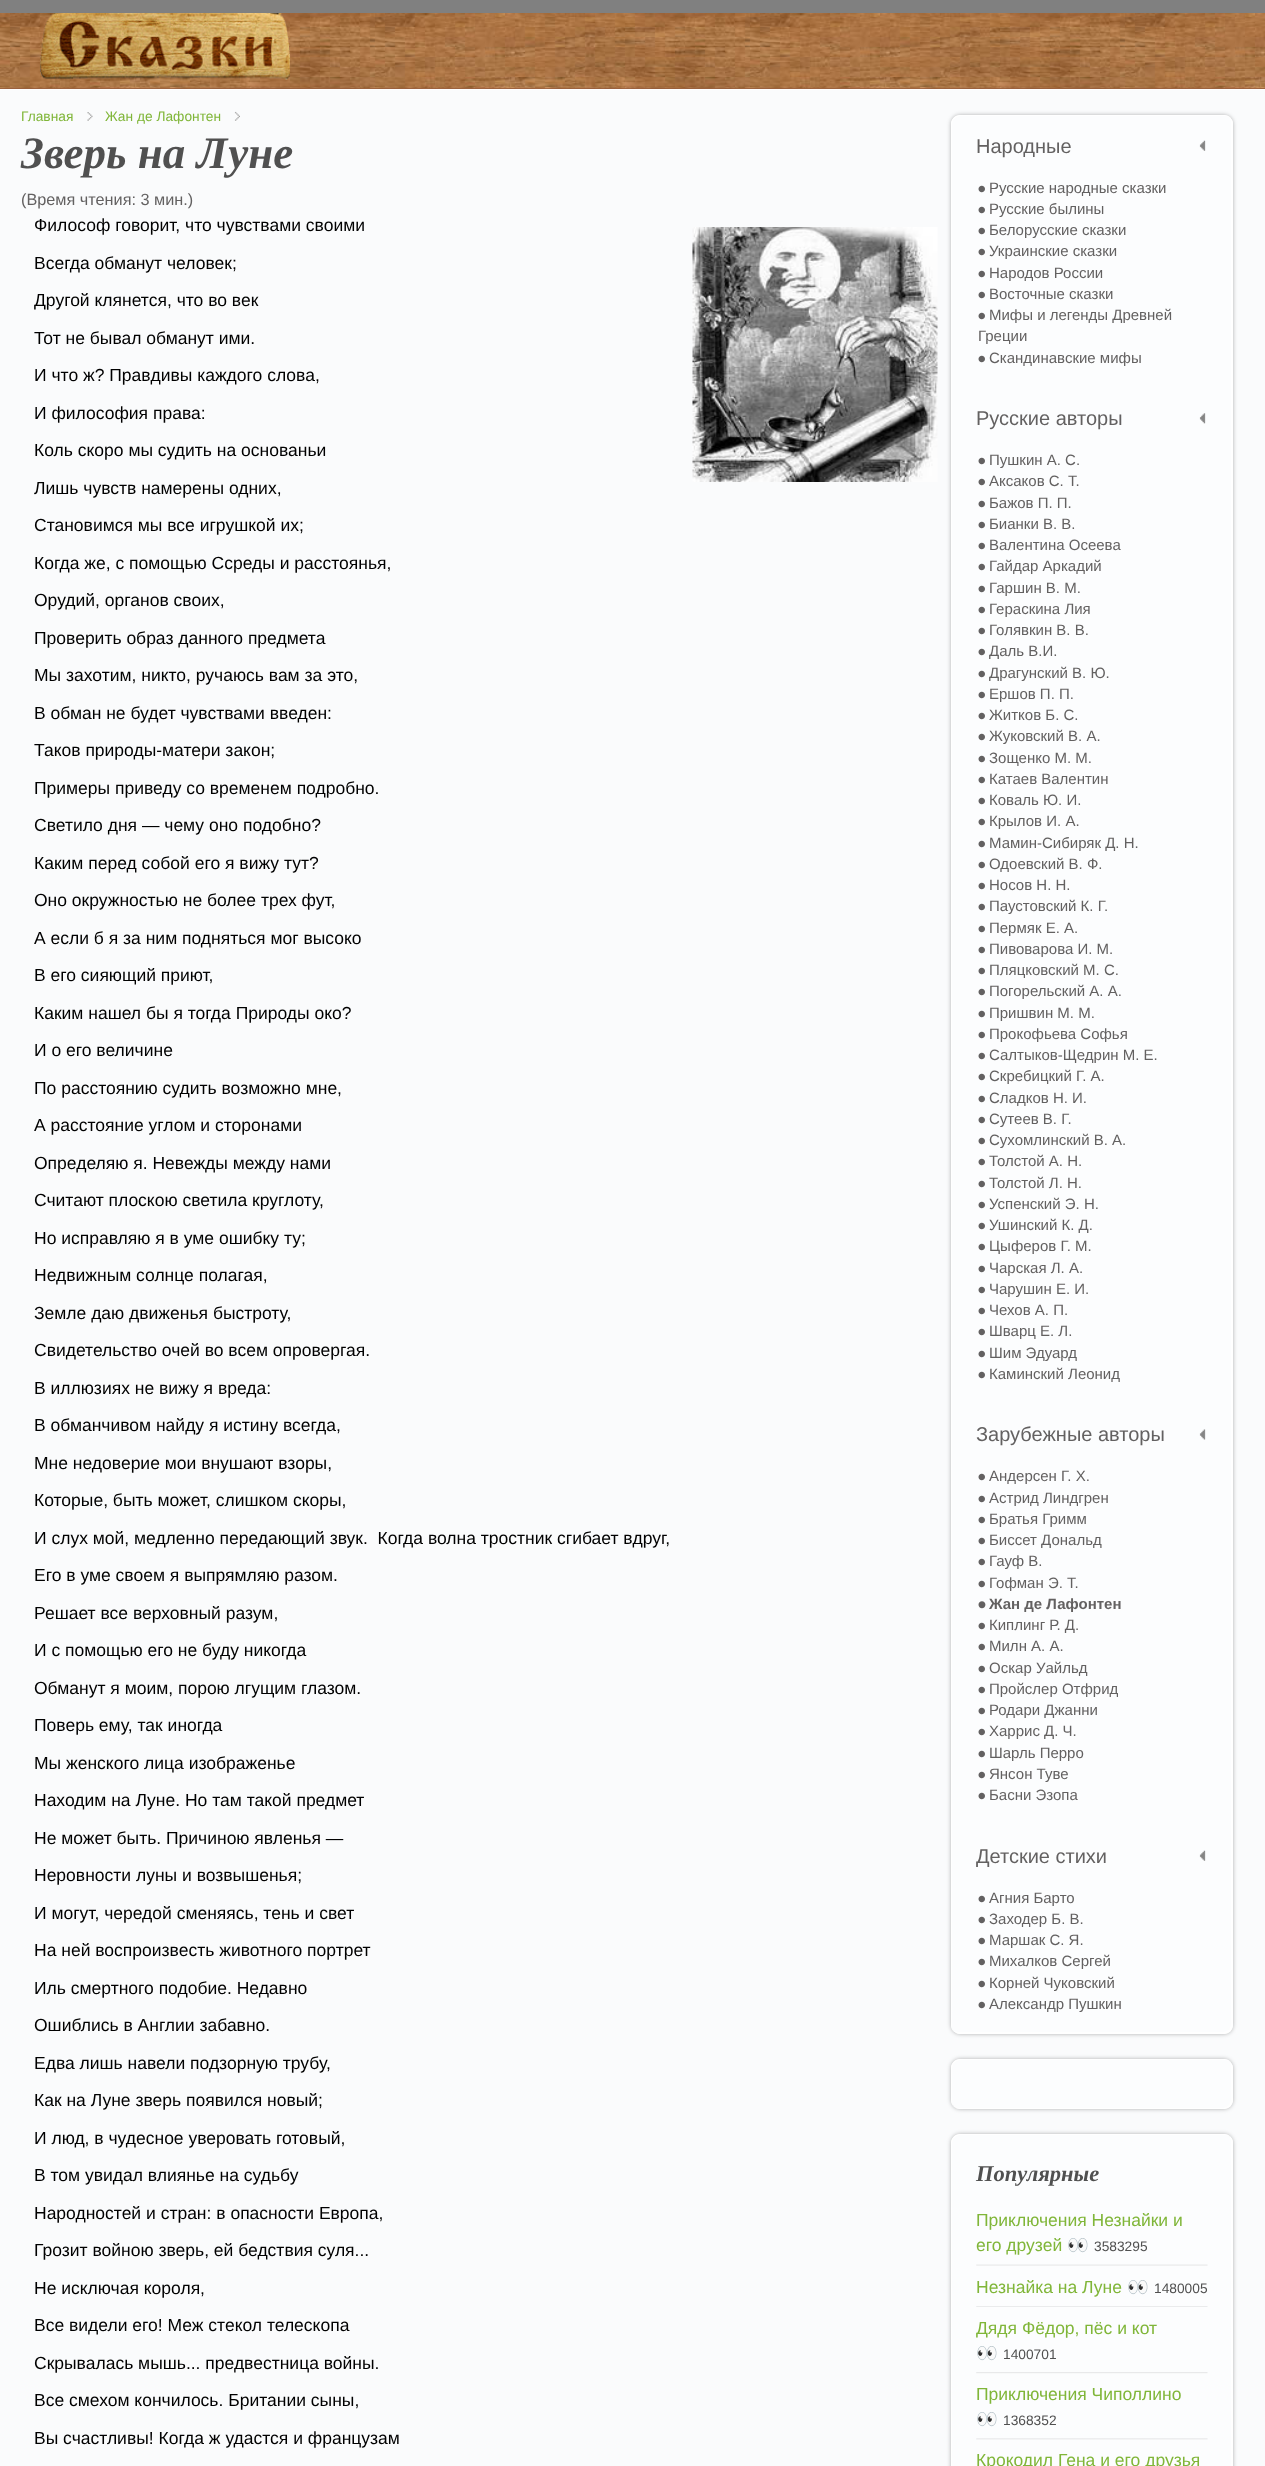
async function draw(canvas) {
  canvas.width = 1265
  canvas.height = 2466
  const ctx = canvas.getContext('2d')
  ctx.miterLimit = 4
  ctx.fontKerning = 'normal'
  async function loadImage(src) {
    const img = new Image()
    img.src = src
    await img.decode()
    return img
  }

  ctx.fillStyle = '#975c3c'
  ctx.fillRect(0, 0, 1265, 2466)
  ctx.drawImage(await loadImage('image0.png'), 0, 13, 1265, 76)
  ctx.drawImage(await loadImage('image1.png'), 40, 13, 250, 67)
  ctx.fillStyle = '#fafbfc'
  ctx.fillRect(0, 90, 1265, 2376)
  ctx.fillStyle = '#fff'
  ctx.fillRect(0, 89, 1265, 1)
  ctx.drawImage(await loadImage('image2.png'), 87, 112, 6, 9)
  ctx.font = '13.75px Liberation Sans'
  ctx.fillStyle = '#80b639'
  ctx.fillText('Главная', 21, 121)
  ctx.drawImage(await loadImage('image3.png'), 234, 111, 6, 11)
  ctx.fillText('Жан де Лафонтен', 105, 121)
  ctx.font = 'italic bold 45px Liberation Serif'
  ctx.fillStyle = '#505050'
  ctx.fillText('Зверь на Луне', 21, 168)
  ctx.font = '16.25px Liberation Sans'
  ctx.fillStyle = '#636161'
  ctx.fillText('(Время чтения: 3 мин.)', 21, 205)
  ctx.fillStyle = '#808080'
  ctx.fillRect(0, 0, 1265, 13)
  ctx.font = '17.5px Liberation Sans'
  ctx.fillStyle = '#000'
  ctx.fillText('Философ говорит, что чувствами своими', 34, 231)
  ctx.drawImage(await loadImage('image4.png'), 692, 227, 246, 255)
  ctx.fillText('Всегда обманут человек;', 34, 269)
  ctx.fillText('Другой клянется, что во век', 34, 306)
  ctx.fillText('Тот не бывал обманут ими.', 34, 344)
  ctx.fillText('И что ж? Правдивы каждого слова,', 34, 381)
  ctx.fillText('И философия права:', 34, 419)
  ctx.fillText('Коль скоро мы судить на основаньи', 34, 456)
  ctx.fillText('Лишь чувств намерены одних,', 34, 494)
  ctx.fillText('Становимся мы все игрушкой их;', 34, 531)
  ctx.fillText('Когда же, с помощью Ссреды и расстоянья,', 34, 569)
  ctx.fillText('Орудий, органов своих,', 34, 606)
  ctx.fillText('Проверить образ данного предмета', 34, 644)
  ctx.fillText('Мы захотим, никто, ручаюсь вам за это,', 34, 681)
  ctx.fillText('В обман не будет чувствами введен:', 34, 719)
  ctx.fillText('Таков природы-матери закон;', 34, 756)
  ctx.fillText('Примеры приведу со временем подробно.', 34, 794)
  ctx.fillText('Светило дня — чему оно подобно?', 34, 831)
  ctx.fillText('Каким перед собой его я вижу тут?', 34, 869)
  ctx.fillText('Оно окружностью не более трех фут,', 34, 906)
  ctx.fillText('А если б я за ним подняться мог высоко', 34, 944)
  ctx.fillText('В его сияющий приют,', 34, 981)
  ctx.fillText('Каким нашел бы я тогда Природы око?', 34, 1019)
  ctx.fillText('И о его величине', 34, 1056)
  ctx.fillText('По расстоянию судить возможно мне,', 34, 1094)
  ctx.fillText('А расстояние углом и сторонами', 34, 1131)
  ctx.fillText('Определяю я. Невежды между нами', 34, 1169)
  ctx.fillText('Считают плоскою светила круглоту,', 34, 1206)
  ctx.fillText('Но исправляю я в уме ошибку ту;', 34, 1244)
  ctx.fillText('Недвижным солнце полагая,', 34, 1281)
  ctx.fillText('Земле даю движенья быстроту,', 34, 1319)
  ctx.fillText('Свидетельство очей во всем опровергая.', 34, 1356)
  ctx.fillText('В иллюзиях не вижу я вреда:', 34, 1394)
  ctx.fillText('В обманчивом найду я истину всегда,', 34, 1431)
  ctx.fillText('Мне недоверие мои внушают взоры,', 34, 1469)
  ctx.fillText('Которые, быть может, слишком скоры,', 34, 1506)
  ctx.fillText('И слух мой, медленно передающий звук.  Когда волна тростник сгибает вдруг,', 34, 1544)
  ctx.fillText('Его в уме своем я выпрямляю разом.', 34, 1581)
  ctx.fillText('Решает все верховный разум,', 34, 1619)
  ctx.fillText('И с помощью его не буду никогда', 34, 1656)
  ctx.fillText('Обманут я моим, порою лгущим глазом.', 34, 1694)
  ctx.fillText('Поверь ему, так иногда', 34, 1731)
  ctx.fillText('Мы женского лица изображенье', 34, 1769)
  ctx.fillText('Находим на Луне. Но там такой предмет', 34, 1806)
  ctx.fillText('Не может быть. Причиною явленья —', 34, 1844)
  ctx.fillText('Неровности луны и возвышенья;', 34, 1881)
  ctx.fillText('И могут, чередой сменяясь, тень и свет', 34, 1919)
  ctx.fillText('На ней воспроизвесть животного портрет', 34, 1956)
  ctx.fillText('Иль смертного подобие. Недавно', 34, 1994)
  ctx.fillText('Ошиблись в Англии забавно.', 34, 2031)
  ctx.fillText('Едва лишь навели подзорную трубу,', 34, 2069)
  ctx.fillText('Как на Луне зверь появился новый;', 34, 2106)
  ctx.fillText('И люд, в чудесное уверовать готовый,', 34, 2144)
  ctx.fillText('В том увидал влиянье на судьбу', 34, 2181)
  ctx.fillText('Народностей и стран: в опасности Европа,', 34, 2219)
  ctx.fillText('Грозит войною зверь, ей бедствия суля...', 34, 2256)
  ctx.fillText('Не исключая короля,', 34, 2294)
  ctx.fillText('Все видели его! Меж стекол телескопа', 34, 2331)
  ctx.fillText('Скрывалась мышь... предвестница войны.', 34, 2369)
  ctx.fillText('Все смехом кончилось. Британии сыны,', 34, 2406)
  ctx.fillText('Вы счастливы! Когда ж удастся и французам', 34, 2444)
  ctx.fillStyle = '#0000004d'
  ctx.filter = 'blur(2px)'
  ctx.beginPath()
  ctx.roundRect(951, 115, 282, 1919, 9)
  ctx.fill()
  ctx.filter = 'none'
  ctx.fillStyle = '#fcfdfe'
  ctx.beginPath()
  ctx.roundRect(951, 115, 282, 1919, 9)
  ctx.fill()
  ctx.fillStyle = '#fff'
  ctx.beginPath()
  ctx.moveTo(952, 2029)
  ctx.bezierCurveTo(954, 2032, 957, 2034, 960, 2034)
  ctx.lineTo(1224, 2034)
  ctx.bezierCurveTo(1229, 2034, 1233, 2030, 1233, 2025)
  ctx.lineTo(1233, 124)
  ctx.bezierCurveTo(1233, 120, 1231, 117, 1227, 116)
  ctx.bezierCurveTo(1230, 117, 1231, 120, 1231, 122)
  ctx.lineTo(1231, 2024)
  ctx.bezierCurveTo(1231, 2029, 1227, 2032, 1222, 2032)
  ctx.lineTo(959, 2032)
  ctx.bezierCurveTo(956, 2032, 954, 2031, 952, 2029)
  ctx.closePath()
  ctx.fill()
  ctx.beginPath()
  ctx.moveTo(961, 116)
  ctx.lineTo(1225, 116)
  ctx.bezierCurveTo(1227, 116, 1229, 117, 1231, 118)
  ctx.bezierCurveTo(1229, 116, 1227, 115, 1224, 115)
  ctx.lineTo(960, 115)
  ctx.bezierCurveTo(955, 115, 951, 119, 951, 124)
  ctx.lineTo(951, 2025)
  ctx.bezierCurveTo(951, 2028, 952, 2030, 954, 2032)
  ctx.bezierCurveTo(953, 2030, 952, 2028, 952, 2026)
  ctx.lineTo(952, 125)
  ctx.bezierCurveTo(952, 120, 956, 116, 961, 116)
  ctx.closePath()
  ctx.fill()
  ctx.drawImage(await loadImage('image5.png'), 1199, 140, 7, 11)
  ctx.font = '20px Liberation Sans'
  ctx.fillStyle = '#636161'
  ctx.fillText('Народные', 976, 153)
  ctx.font = '15px FreeSans'
  ctx.fillText('⦁', 978, 193)
  ctx.font = '15px Liberation Sans'
  ctx.fillText('Русские народные сказки', 989, 193)
  ctx.font = '15px FreeSans'
  ctx.fillText('⦁', 978, 214)
  ctx.font = '15px Liberation Sans'
  ctx.fillText('Русские былины', 989, 214)
  ctx.font = '15px FreeSans'
  ctx.fillText('⦁', 978, 235)
  ctx.font = '15px Liberation Sans'
  ctx.fillText('Белорусские сказки', 989, 235)
  ctx.font = '15px FreeSans'
  ctx.fillText('⦁', 978, 256)
  ctx.font = '15px Liberation Sans'
  ctx.fillText('Украинские сказки', 989, 256)
  ctx.font = '15px FreeSans'
  ctx.fillText('⦁', 978, 278)
  ctx.font = '15px Liberation Sans'
  ctx.fillText('Народов России', 989, 278)
  ctx.font = '15px FreeSans'
  ctx.fillText('⦁', 978, 299)
  ctx.font = '15px Liberation Sans'
  ctx.fillText('Восточные сказки', 989, 299)
  ctx.font = '15px FreeSans'
  ctx.fillText('⦁', 978, 320)
  ctx.font = '15px Liberation Sans'
  ctx.fillText('Мифы и легенды Древней', 989, 320)
  ctx.fillText('Греции', 978, 341)
  ctx.font = '15px FreeSans'
  ctx.fillText('⦁', 978, 363)
  ctx.font = '15px Liberation Sans'
  ctx.fillText('Скандинавские мифы', 989, 363)
  ctx.drawImage(await loadImage('image6.png'), 1199, 413, 7, 11)
  ctx.font = '20px Liberation Sans'
  ctx.fillText('Русские авторы', 976, 425)
  ctx.font = '15px FreeSans'
  ctx.fillText('⦁', 978, 465)
  ctx.font = '15px Liberation Sans'
  ctx.fillText('Пушкин А. С.', 989, 465)
  ctx.font = '15px FreeSans'
  ctx.fillText('⦁', 978, 486)
  ctx.font = '15px Liberation Sans'
  ctx.fillText('Аксаков С. Т.', 989, 486)
  ctx.font = '15px FreeSans'
  ctx.fillText('⦁', 978, 508)
  ctx.font = '15px Liberation Sans'
  ctx.fillText('Бажов П. П.', 989, 508)
  ctx.font = '15px FreeSans'
  ctx.fillText('⦁', 978, 529)
  ctx.font = '15px Liberation Sans'
  ctx.fillText('Бианки В. В.', 989, 529)
  ctx.font = '15px FreeSans'
  ctx.fillText('⦁', 978, 550)
  ctx.font = '15px Liberation Sans'
  ctx.fillText('Валентина Осеева', 989, 550)
  ctx.font = '15px FreeSans'
  ctx.fillText('⦁', 978, 571)
  ctx.font = '15px Liberation Sans'
  ctx.fillText('Гайдар Аркадий', 989, 571)
  ctx.font = '15px FreeSans'
  ctx.fillText('⦁', 978, 593)
  ctx.font = '15px Liberation Sans'
  ctx.fillText('Гаршин В. М.', 989, 593)
  ctx.font = '15px FreeSans'
  ctx.fillText('⦁', 978, 614)
  ctx.font = '15px Liberation Sans'
  ctx.fillText('Гераскина Лия', 989, 614)
  ctx.font = '15px FreeSans'
  ctx.fillText('⦁', 978, 635)
  ctx.font = '15px Liberation Sans'
  ctx.fillText('Голявкин В. В.', 989, 635)
  ctx.font = '15px FreeSans'
  ctx.fillText('⦁', 978, 656)
  ctx.font = '15px Liberation Sans'
  ctx.fillText('Даль В.И.', 989, 656)
  ctx.font = '15px FreeSans'
  ctx.fillText('⦁', 978, 678)
  ctx.font = '15px Liberation Sans'
  ctx.fillText('Драгунский В. Ю.', 989, 678)
  ctx.font = '15px FreeSans'
  ctx.fillText('⦁', 978, 699)
  ctx.font = '15px Liberation Sans'
  ctx.fillText('Ершов П. П.', 989, 699)
  ctx.font = '15px FreeSans'
  ctx.fillText('⦁', 978, 720)
  ctx.font = '15px Liberation Sans'
  ctx.fillText('Житков Б. С.', 989, 720)
  ctx.font = '15px FreeSans'
  ctx.fillText('⦁', 978, 741)
  ctx.font = '15px Liberation Sans'
  ctx.fillText('Жуковский В. А.', 989, 741)
  ctx.font = '15px FreeSans'
  ctx.fillText('⦁', 978, 763)
  ctx.font = '15px Liberation Sans'
  ctx.fillText('Зощенко М. М.', 989, 763)
  ctx.font = '15px FreeSans'
  ctx.fillText('⦁', 978, 784)
  ctx.font = '15px Liberation Sans'
  ctx.fillText('Катаев Валентин', 989, 784)
  ctx.font = '15px FreeSans'
  ctx.fillText('⦁', 978, 805)
  ctx.font = '15px Liberation Sans'
  ctx.fillText('Коваль Ю. И.', 989, 805)
  ctx.font = '15px FreeSans'
  ctx.fillText('⦁', 978, 826)
  ctx.font = '15px Liberation Sans'
  ctx.fillText('Крылов И. А.', 989, 826)
  ctx.font = '15px FreeSans'
  ctx.fillText('⦁', 978, 848)
  ctx.font = '15px Liberation Sans'
  ctx.fillText('Мамин-Сибиряк Д. Н.', 989, 848)
  ctx.font = '15px FreeSans'
  ctx.fillText('⦁', 978, 869)
  ctx.font = '15px Liberation Sans'
  ctx.fillText('Одоевский В. Ф.', 989, 869)
  ctx.font = '15px FreeSans'
  ctx.fillText('⦁', 978, 890)
  ctx.font = '15px Liberation Sans'
  ctx.fillText('Носов Н. Н.', 989, 890)
  ctx.font = '15px FreeSans'
  ctx.fillText('⦁', 978, 911)
  ctx.font = '15px Liberation Sans'
  ctx.fillText('Паустовский К. Г.', 989, 911)
  ctx.font = '15px FreeSans'
  ctx.fillText('⦁', 978, 933)
  ctx.font = '15px Liberation Sans'
  ctx.fillText('Пермяк Е. А.', 989, 933)
  ctx.font = '15px FreeSans'
  ctx.fillText('⦁', 978, 954)
  ctx.font = '15px Liberation Sans'
  ctx.fillText('Пивоварова И. М.', 989, 954)
  ctx.font = '15px FreeSans'
  ctx.fillText('⦁', 978, 975)
  ctx.font = '15px Liberation Sans'
  ctx.fillText('Пляцковский М. С.', 989, 975)
  ctx.font = '15px FreeSans'
  ctx.fillText('⦁', 978, 996)
  ctx.font = '15px Liberation Sans'
  ctx.fillText('Погорельский А. A.', 989, 996)
  ctx.font = '15px FreeSans'
  ctx.fillText('⦁', 978, 1018)
  ctx.font = '15px Liberation Sans'
  ctx.fillText('Пришвин М. М.', 989, 1018)
  ctx.font = '15px FreeSans'
  ctx.fillText('⦁', 978, 1039)
  ctx.font = '15px Liberation Sans'
  ctx.fillText('Прокофьева Софья', 989, 1039)
  ctx.font = '15px FreeSans'
  ctx.fillText('⦁', 978, 1060)
  ctx.font = '15px Liberation Sans'
  ctx.fillText('Салтыков-Щедрин М. Е.', 989, 1060)
  ctx.font = '15px FreeSans'
  ctx.fillText('⦁', 978, 1081)
  ctx.font = '15px Liberation Sans'
  ctx.fillText('Скребицкий Г. А.', 989, 1081)
  ctx.font = '15px FreeSans'
  ctx.fillText('⦁', 978, 1103)
  ctx.font = '15px Liberation Sans'
  ctx.fillText('Сладков Н. И.', 989, 1103)
  ctx.font = '15px FreeSans'
  ctx.fillText('⦁', 978, 1124)
  ctx.font = '15px Liberation Sans'
  ctx.fillText('Сутеев В. Г.', 989, 1124)
  ctx.font = '15px FreeSans'
  ctx.fillText('⦁', 978, 1145)
  ctx.font = '15px Liberation Sans'
  ctx.fillText('Сухомлинский В. А.', 989, 1145)
  ctx.font = '15px FreeSans'
  ctx.fillText('⦁', 978, 1166)
  ctx.font = '15px Liberation Sans'
  ctx.fillText('Толстой А. Н.', 989, 1166)
  ctx.font = '15px FreeSans'
  ctx.fillText('⦁', 978, 1188)
  ctx.font = '15px Liberation Sans'
  ctx.fillText('Толстой Л. Н.', 989, 1188)
  ctx.font = '15px FreeSans'
  ctx.fillText('⦁', 978, 1209)
  ctx.font = '15px Liberation Sans'
  ctx.fillText('Успенский Э. Н.', 989, 1209)
  ctx.font = '15px FreeSans'
  ctx.fillText('⦁', 978, 1230)
  ctx.font = '15px Liberation Sans'
  ctx.fillText('Ушинский К. Д.', 989, 1230)
  ctx.font = '15px FreeSans'
  ctx.fillText('⦁', 978, 1251)
  ctx.font = '15px Liberation Sans'
  ctx.fillText('Цыферов Г. М.', 989, 1251)
  ctx.font = '15px FreeSans'
  ctx.fillText('⦁', 978, 1273)
  ctx.font = '15px Liberation Sans'
  ctx.fillText('Чарская Л. А.', 989, 1273)
  ctx.font = '15px FreeSans'
  ctx.fillText('⦁', 978, 1294)
  ctx.font = '15px Liberation Sans'
  ctx.fillText('Чарушин Е. И.', 989, 1294)
  ctx.font = '15px FreeSans'
  ctx.fillText('⦁', 978, 1315)
  ctx.font = '15px Liberation Sans'
  ctx.fillText('Чехов А. П.', 989, 1315)
  ctx.font = '15px FreeSans'
  ctx.fillText('⦁', 978, 1336)
  ctx.font = '15px Liberation Sans'
  ctx.fillText('Шварц Е. Л.', 989, 1336)
  ctx.font = '15px FreeSans'
  ctx.fillText('⦁', 978, 1358)
  ctx.font = '15px Liberation Sans'
  ctx.fillText('Шим Эдуард', 989, 1358)
  ctx.font = '15px FreeSans'
  ctx.fillText('⦁', 978, 1379)
  ctx.font = '15px Liberation Sans'
  ctx.fillText('Каминский Леонид', 989, 1379)
  ctx.drawImage(await loadImage('image7.png'), 1199, 1429, 7, 11)
  ctx.font = '20px Liberation Sans'
  ctx.fillText('Зарубежные авторы', 976, 1441)
  ctx.font = '15px FreeSans'
  ctx.fillText('⦁', 978, 1481)
  ctx.font = '15px Liberation Sans'
  ctx.fillText('Андерсен Г. Х.', 989, 1481)
  ctx.font = '15px FreeSans'
  ctx.fillText('⦁', 978, 1503)
  ctx.font = '15px Liberation Sans'
  ctx.fillText('Астрид Линдгрен', 989, 1503)
  ctx.font = '15px FreeSans'
  ctx.fillText('⦁', 978, 1524)
  ctx.font = '15px Liberation Sans'
  ctx.fillText('Братья Гримм', 989, 1524)
  ctx.font = '15px FreeSans'
  ctx.fillText('⦁', 978, 1545)
  ctx.font = '15px Liberation Sans'
  ctx.fillText('Биссет Дональд', 989, 1545)
  ctx.font = '15px FreeSans'
  ctx.fillText('⦁', 978, 1566)
  ctx.font = '15px Liberation Sans'
  ctx.fillText('Гауф В.', 989, 1566)
  ctx.font = '15px FreeSans'
  ctx.fillText('⦁', 978, 1588)
  ctx.font = '15px Liberation Sans'
  ctx.fillText('Гофман Э. Т.', 989, 1588)
  ctx.font = 'bold 15px FreeSans'
  ctx.fillText('⦁', 978, 1609)
  ctx.font = 'bold 15px Liberation Sans'
  ctx.fillText('Жан де Лафонтен', 989, 1609)
  ctx.font = '15px FreeSans'
  ctx.fillText('⦁', 978, 1630)
  ctx.font = '15px Liberation Sans'
  ctx.fillText('Киплинг Р. Д.', 989, 1630)
  ctx.font = '15px FreeSans'
  ctx.fillText('⦁', 978, 1651)
  ctx.font = '15px Liberation Sans'
  ctx.fillText('Милн А. А.', 989, 1651)
  ctx.font = '15px FreeSans'
  ctx.fillText('⦁', 978, 1673)
  ctx.font = '15px Liberation Sans'
  ctx.fillText('Оскар Уайльд', 989, 1673)
  ctx.font = '15px FreeSans'
  ctx.fillText('⦁', 978, 1694)
  ctx.font = '15px Liberation Sans'
  ctx.fillText('Пройслер Отфрид', 989, 1694)
  ctx.font = '15px FreeSans'
  ctx.fillText('⦁', 978, 1715)
  ctx.font = '15px Liberation Sans'
  ctx.fillText('Родари Джанни', 989, 1715)
  ctx.font = '15px FreeSans'
  ctx.fillText('⦁', 978, 1736)
  ctx.font = '15px Liberation Sans'
  ctx.fillText('Харрис Д. Ч.', 989, 1736)
  ctx.font = '15px FreeSans'
  ctx.fillText('⦁', 978, 1758)
  ctx.font = '15px Liberation Sans'
  ctx.fillText('Шарль Перро', 989, 1758)
  ctx.font = '15px FreeSans'
  ctx.fillText('⦁', 978, 1779)
  ctx.font = '15px Liberation Sans'
  ctx.fillText('Янсон Туве', 989, 1779)
  ctx.font = '15px FreeSans'
  ctx.fillText('⦁', 978, 1800)
  ctx.font = '15px Liberation Sans'
  ctx.fillText('Басни Эзопа', 989, 1800)
  ctx.drawImage(await loadImage('image8.png'), 1199, 1850, 7, 11)
  ctx.font = '20px Liberation Sans'
  ctx.fillText('Детские стихи', 976, 1863)
  ctx.font = '15px FreeSans'
  ctx.fillText('⦁', 978, 1903)
  ctx.font = '15px Liberation Sans'
  ctx.fillText('Агния Барто', 989, 1903)
  ctx.font = '15px FreeSans'
  ctx.fillText('⦁', 978, 1924)
  ctx.font = '15px Liberation Sans'
  ctx.fillText('Заходер Б. В.', 989, 1924)
  ctx.font = '15px FreeSans'
  ctx.fillText('⦁', 978, 1945)
  ctx.font = '15px Liberation Sans'
  ctx.fillText('Маршак С. Я.', 989, 1945)
  ctx.font = '15px FreeSans'
  ctx.fillText('⦁', 978, 1966)
  ctx.font = '15px Liberation Sans'
  ctx.fillText('Михалков Сергей', 989, 1966)
  ctx.font = '15px FreeSans'
  ctx.fillText('⦁', 978, 1988)
  ctx.font = '15px Liberation Sans'
  ctx.fillText('Корней Чуковский', 989, 1988)
  ctx.font = '15px FreeSans'
  ctx.fillText('⦁', 978, 2009)
  ctx.font = '15px Liberation Sans'
  ctx.fillText('Александр Пушкин', 989, 2009)
  ctx.fillStyle = '#0000004d'
  ctx.filter = 'blur(2px)'
  ctx.beginPath()
  ctx.roundRect(951, 2059, 282, 50, 9)
  ctx.fill()
  ctx.filter = 'none'
  ctx.fillStyle = '#fcfdfe'
  ctx.beginPath()
  ctx.roundRect(951, 2059, 282, 50, 9)
  ctx.fill()
  ctx.fillStyle = '#fff'
  ctx.beginPath()
  ctx.moveTo(953, 2106)
  ctx.bezierCurveTo(955, 2108, 957, 2109, 960, 2109)
  ctx.lineTo(1224, 2109)
  ctx.bezierCurveTo(1229, 2109, 1233, 2105, 1233, 2100)
  ctx.lineTo(1233, 2068)
  ctx.bezierCurveTo(1233, 2065, 1231, 2062, 1228, 2060)
  ctx.bezierCurveTo(1230, 2062, 1231, 2064, 1231, 2066)
  ctx.lineTo(1231, 2099)
  ctx.bezierCurveTo(1231, 2104, 1227, 2108, 1222, 2108)
  ctx.lineTo(959, 2108)
  ctx.bezierCurveTo(957, 2108, 955, 2107, 953, 2106)
  ctx.closePath()
  ctx.fill()
  ctx.beginPath()
  ctx.moveTo(961, 2060)
  ctx.lineTo(1225, 2060)
  ctx.bezierCurveTo(1227, 2060, 1229, 2061, 1231, 2062)
  ctx.bezierCurveTo(1229, 2060, 1227, 2059, 1224, 2059)
  ctx.lineTo(960, 2059)
  ctx.bezierCurveTo(955, 2059, 951, 2063, 951, 2068)
  ctx.lineTo(951, 2100)
  ctx.bezierCurveTo(951, 2103, 952, 2105, 954, 2107)
  ctx.bezierCurveTo(953, 2105, 952, 2103, 952, 2101)
  ctx.lineTo(952, 2069)
  ctx.bezierCurveTo(952, 2064, 956, 2060, 961, 2060)
  ctx.closePath()
  ctx.fill()
  ctx.fillStyle = '#0000004d'
  ctx.filter = 'blur(2px)'
  ctx.beginPath()
  ctx.roundRect(951, 2134, 282, 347, 9)
  ctx.fill()
  ctx.filter = 'none'
  ctx.fillStyle = '#fcfdfe'
  ctx.beginPath()
  ctx.roundRect(951, 2134, 282, 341, 9)
  ctx.fill()
  ctx.fillStyle = '#fff'
  ctx.beginPath()
  ctx.moveTo(953, 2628)
  ctx.bezierCurveTo(955, 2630, 957, 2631, 960, 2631)
  ctx.lineTo(1224, 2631)
  ctx.bezierCurveTo(1229, 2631, 1233, 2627, 1233, 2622)
  ctx.lineTo(1233, 2143)
  ctx.bezierCurveTo(1233, 2140, 1232, 2137, 1229, 2136)
  ctx.bezierCurveTo(1230, 2137, 1231, 2139, 1231, 2141)
  ctx.lineTo(1231, 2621)
  ctx.bezierCurveTo(1231, 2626, 1227, 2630, 1222, 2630)
  ctx.lineTo(959, 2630)
  ctx.bezierCurveTo(957, 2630, 955, 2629, 953, 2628)
  ctx.closePath()
  ctx.fill()
  ctx.beginPath()
  ctx.moveTo(961, 2135)
  ctx.lineTo(1225, 2135)
  ctx.bezierCurveTo(1227, 2135, 1229, 2136, 1231, 2137)
  ctx.bezierCurveTo(1229, 2135, 1227, 2134, 1224, 2134)
  ctx.lineTo(960, 2134)
  ctx.bezierCurveTo(955, 2134, 951, 2138, 951, 2143)
  ctx.lineTo(951, 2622)
  ctx.bezierCurveTo(951, 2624, 952, 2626, 953, 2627)
  ctx.lineTo(952, 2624)
  ctx.lineTo(952, 2144)
  ctx.bezierCurveTo(952, 2139, 956, 2135, 961, 2135)
  ctx.closePath()
  ctx.fill()
  ctx.font = 'italic bold 22.5px Liberation Serif'
  ctx.fillStyle = '#505050'
  ctx.fillText('Популярные', 976, 2181)
  ctx.font = '17.5px Liberation Sans'
  ctx.fillStyle = '#80b639'
  ctx.fillText('Приключения Незнайки и', 976, 2226)
  ctx.fillText('его друзей', 976, 2251)
  ctx.font = '17.5px Noto Color Emoji'
  ctx.fillStyle = '#000'
  ctx.fillText('👀', 1067, 2251)
  ctx.font = '13.75px Liberation Sans'
  ctx.fillStyle = '#505050'
  ctx.fillText('3583295', 1094, 2251)
  ctx.drawImage(await loadImage('image9.png'), 976, 2264, 232, 2)
  ctx.font = '17.5px Liberation Sans'
  ctx.fillStyle = '#80b639'
  ctx.fillText('Незнайка на Луне', 976, 2293)
  ctx.font = '17.5px Noto Color Emoji'
  ctx.fillStyle = '#000'
  ctx.fillText('👀', 1127, 2293)
  ctx.font = '13.75px Liberation Sans'
  ctx.fillStyle = '#505050'
  ctx.fillText('1480005', 1154, 2293)
  ctx.drawImage(await loadImage('image10.png'), 976, 2306, 232, 1)
  ctx.font = '17.5px Liberation Sans'
  ctx.fillStyle = '#80b639'
  ctx.fillText('Дядя Фёдор, пёс и кот', 976, 2334)
  ctx.font = '17.5px Noto Color Emoji'
  ctx.fillStyle = '#000'
  ctx.fillText('👀', 976, 2359)
  ctx.font = '13.75px Liberation Sans'
  ctx.fillStyle = '#505050'
  ctx.fillText('1400701', 1003, 2359)
  ctx.drawImage(await loadImage('image11.png'), 976, 2372, 232, 2)
  ctx.font = '17.5px Liberation Sans'
  ctx.fillStyle = '#80b639'
  ctx.fillText('Приключения Чиполлино', 976, 2400)
  ctx.font = '17.5px Noto Color Emoji'
  ctx.fillStyle = '#000'
  ctx.fillText('👀', 976, 2425)
  ctx.font = '13.75px Liberation Sans'
  ctx.fillStyle = '#505050'
  ctx.fillText('1368352', 1003, 2425)
  ctx.drawImage(await loadImage('image12.png'), 976, 2438, 232, 2)
  ctx.font = '17.5px Liberation Sans'
  ctx.fillStyle = '#80b639'
  ctx.fillText('Крокодил Гена и его друзья', 976, 2466)
}

draw(document.querySelector('canvas'))
